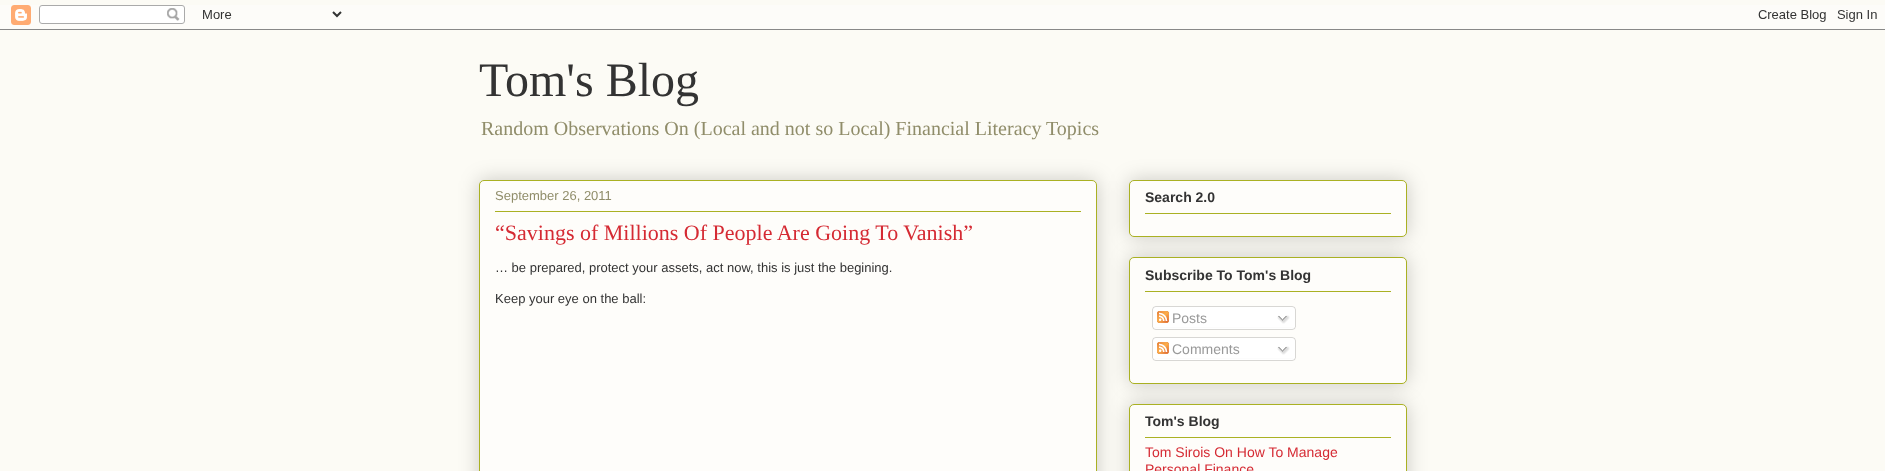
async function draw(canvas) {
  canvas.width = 1885
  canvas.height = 471
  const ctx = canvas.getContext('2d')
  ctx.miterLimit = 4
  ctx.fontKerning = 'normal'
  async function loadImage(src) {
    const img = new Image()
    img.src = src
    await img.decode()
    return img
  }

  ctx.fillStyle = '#fcfbf5'
  ctx.fillRect(0, 0, 1885, 471)
  ctx.drawImage(await loadImage('image0.png'), 0, 5, 1885, 25)
  ctx.font = '48px Liberation Serif'
  ctx.fillStyle = '#333'
  ctx.fillText('Tom\'s Blog', 479, 96)
  ctx.font = '20px Liberation Serif'
  ctx.fillStyle = '#908d6a'
  ctx.fillText('Random Observations On (Local and not so Local) Financial Literacy Topics', 481, 135)
  ctx.fillStyle = '#00000033'
  ctx.filter = 'blur(10px)'
  ctx.beginPath()
  ctx.roundRect(479, 180, 618, 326, 5)
  ctx.fill()
  ctx.filter = 'none'
  ctx.fillStyle = '#fefdfa'
  ctx.beginPath()
  ctx.roundRect(479.5, 180.5, 617, 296, 4.5)
  ctx.fill()
  ctx.strokeStyle = '#aab123'
  ctx.stroke()
  ctx.font = '13px Liberation Sans'
  ctx.fillStyle = '#908d6a'
  ctx.fillText('September 26, 2011', 495, 200)
  ctx.fillStyle = '#aab123'
  ctx.fillRect(495, 211, 586, 1)
  ctx.font = '22px Liberation Serif'
  ctx.fillStyle = '#d52a33'
  ctx.fillText('“Savings of Millions Of People Are Going To Vanish”', 495, 240)
  ctx.font = '13px Liberation Sans'
  ctx.fillStyle = '#333'
  ctx.fillText('… be prepared, protect your assets, act now, this is just the begining.', 495, 272)
  ctx.fillText('Keep your eye on the ball:', 495, 303)
  ctx.fillStyle = '#00000033'
  ctx.filter = 'blur(10px)'
  ctx.beginPath()
  ctx.roundRect(1129, 257, 278, 127, 5)
  ctx.fill()
  ctx.filter = 'none'
  ctx.fillStyle = '#fefdfa'
  ctx.beginPath()
  ctx.roundRect(1129.5, 257.5, 277, 126, 4.5)
  ctx.fill()
  ctx.stroke()
  ctx.fillStyle = '#00000033'
  ctx.filter = 'blur(10px)'
  ctx.beginPath()
  ctx.roundRect(1129, 180, 278, 57, 5)
  ctx.fill()
  ctx.filter = 'none'
  ctx.fillStyle = '#fefdfa'
  ctx.beginPath()
  ctx.roundRect(1129.5, 180.5, 277, 56, 4.5)
  ctx.fill()
  ctx.stroke()
  ctx.font = 'bold 14px Liberation Sans'
  ctx.fillStyle = '#333'
  ctx.fillText('Search 2.0', 1145, 202)
  ctx.fillStyle = '#aab123'
  ctx.fillRect(1145, 213, 246, 1)
  ctx.fillStyle = '#333'
  ctx.fillText('Subscribe To Tom\'s Blog', 1145, 280)
  ctx.fillStyle = '#aab123'
  ctx.fillRect(1145, 291, 246, 1)
  ctx.drawImage(await loadImage('image1.png'), 1152, 306, 144, 21)
  ctx.drawImage(await loadImage('image2.png'), 1157, 311, 12, 12)
  ctx.font = '14px Liberation Sans'
  ctx.fillStyle = '#999'
  ctx.fillText('Posts', 1172, 323)
  ctx.drawImage(await loadImage('image3.png'), 1277, 315, 13, 9)
  ctx.drawImage(await loadImage('image4.png'), 1152, 327, 144, 3)
  ctx.drawImage(await loadImage('image1.png'), 1152, 337, 144, 21)
  ctx.drawImage(await loadImage('image2.png'), 1157, 342, 12, 12)
  ctx.fillText('Comments', 1172, 354)
  ctx.drawImage(await loadImage('image3.png'), 1277, 346, 13, 9)
  ctx.drawImage(await loadImage('image4.png'), 1152, 358, 144, 3)
  ctx.fillStyle = '#00000033'
  ctx.filter = 'blur(10px)'
  ctx.beginPath()
  ctx.roundRect(1129, 404, 278, 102, 5)
  ctx.fill()
  ctx.filter = 'none'
  ctx.fillStyle = '#fefdfa'
  ctx.beginPath()
  ctx.roundRect(1129.5, 404.5, 277, 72, 4.5)
  ctx.fill()
  ctx.stroke()
  ctx.font = 'bold 14px Liberation Sans'
  ctx.fillStyle = '#333'
  ctx.fillText('Tom\'s Blog', 1145, 426)
  ctx.fillStyle = '#aab123'
  ctx.fillRect(1145, 437, 246, 1)
  ctx.font = '14px Liberation Sans'
  ctx.fillStyle = '#d52a33'
  ctx.fillText('Tom Sirois On How To Manage', 1145, 457)
  ctx.fillText('Personal Finance', 1145, 474)
}

draw(document.querySelector('canvas'))
